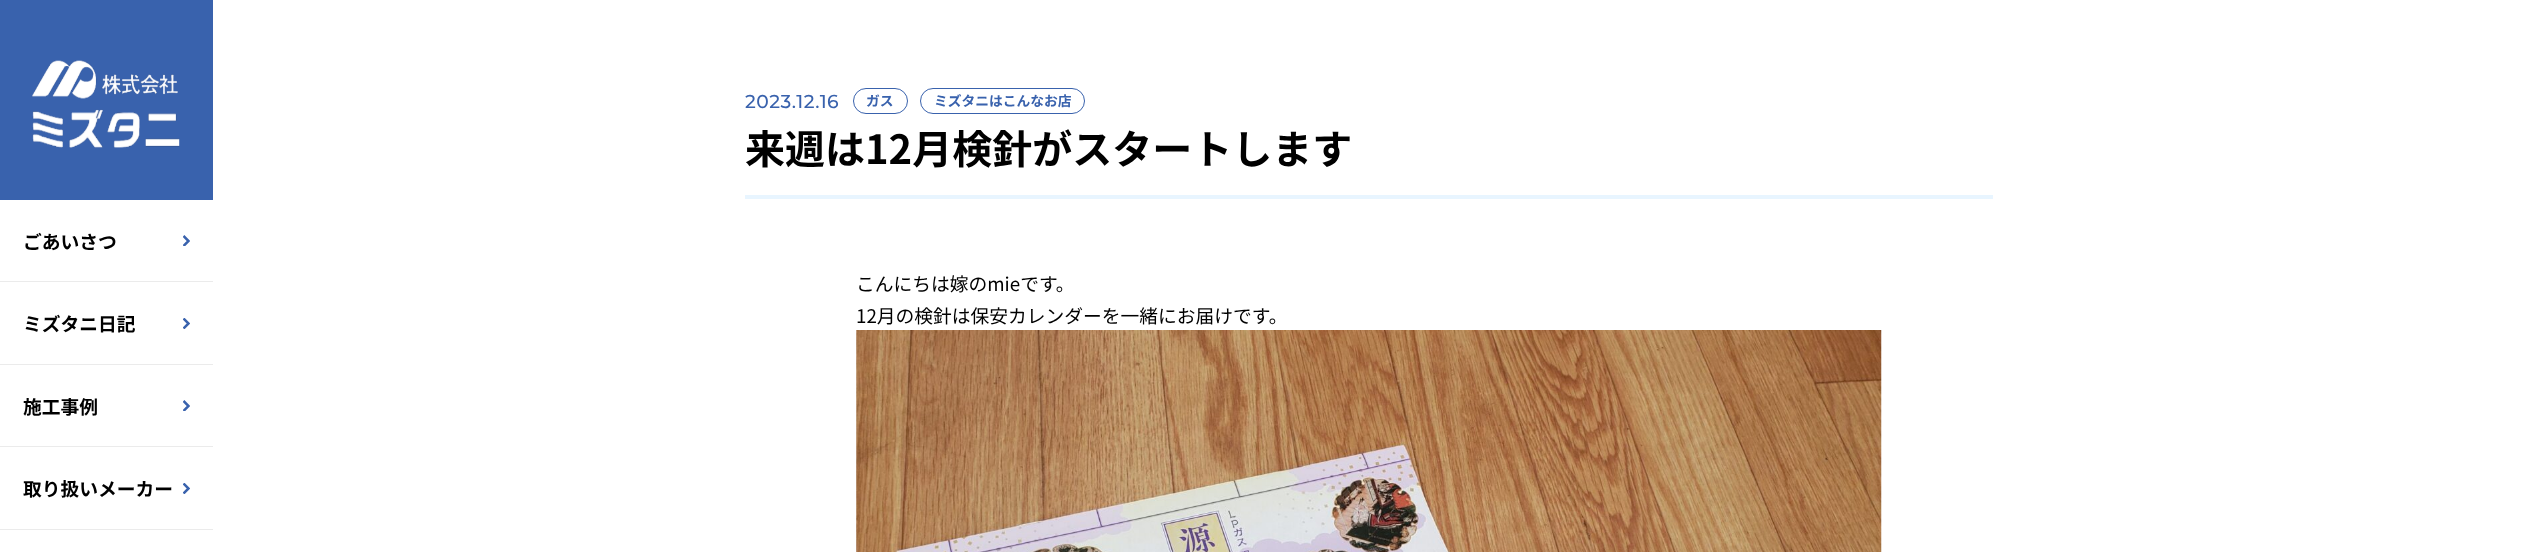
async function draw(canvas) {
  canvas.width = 2525
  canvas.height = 552
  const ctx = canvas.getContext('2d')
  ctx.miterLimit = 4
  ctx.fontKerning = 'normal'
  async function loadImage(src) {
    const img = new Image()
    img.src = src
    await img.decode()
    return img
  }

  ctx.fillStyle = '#fff'
  ctx.fillRect(0, 0, 2525, 552)
  ctx.fillStyle = '#3962ad'
  ctx.fillRect(0, 0, 213, 200)
  ctx.drawImage(await loadImage('image0.png'), 32, 60, 148, 88)
  ctx.fillStyle = '#ebebeb'
  ctx.fillRect(0, 281, 213, 1)
  ctx.font = 'bold 18.75px Noto Sans JP'
  ctx.fillStyle = '#000'
  ctx.fillText('ごあいさつ', 23, 249)
  ctx.save()
  ctx.beginPath()
  ctx.rect(183, 235, 7, 11)
  ctx.clip()
  ctx.beginPath()
  ctx.moveTo(183.5, 236)
  ctx.lineTo(188.5, 241)
  ctx.lineTo(183.5, 246)
  ctx.strokeStyle = '#3962ad'
  ctx.lineWidth = 2.5
  ctx.stroke()
  ctx.restore()
  ctx.fillStyle = '#ebebeb'
  ctx.fillRect(0, 364, 213, 1)
  ctx.fillStyle = '#000'
  ctx.fillText('ミズタニ日記', 23, 331)
  ctx.save()
  ctx.beginPath()
  ctx.rect(183, 318, 7, 11)
  ctx.clip()
  ctx.beginPath()
  ctx.moveTo(183.5, 318.5)
  ctx.lineTo(188.5, 323.5)
  ctx.lineTo(183.5, 328.5)
  ctx.strokeStyle = '#3962ad'
  ctx.lineWidth = 2.5
  ctx.stroke()
  ctx.restore()
  ctx.fillStyle = '#ebebeb'
  ctx.fillRect(0, 446, 213, 1)
  ctx.fillStyle = '#000'
  ctx.fillText('施工事例', 23, 414)
  ctx.save()
  ctx.beginPath()
  ctx.rect(183, 400, 7, 11)
  ctx.clip()
  ctx.beginPath()
  ctx.moveTo(183.5, 401)
  ctx.lineTo(188.5, 406)
  ctx.lineTo(183.5, 411)
  ctx.strokeStyle = '#3962ad'
  ctx.lineWidth = 2.5
  ctx.stroke()
  ctx.restore()
  ctx.fillStyle = '#ebebeb'
  ctx.fillRect(0, 529, 213, 1)
  ctx.fillStyle = '#000'
  ctx.fillText('取り扱いメーカー', 23, 496)
  ctx.save()
  ctx.beginPath()
  ctx.rect(183, 483, 7, 11)
  ctx.clip()
  ctx.beginPath()
  ctx.moveTo(183.5, 483.5)
  ctx.lineTo(188.5, 488.5)
  ctx.lineTo(183.5, 493.5)
  ctx.strokeStyle = '#3962ad'
  ctx.lineWidth = 2.5
  ctx.stroke()
  ctx.restore()
  ctx.fillStyle = '#e8f5ff'
  ctx.fillRect(745, 195, 1248, 4)
  ctx.letterSpacing = '0.5px'
  ctx.font = '500 18.75px Montserrat'
  ctx.fillStyle = '#3962ad'
  ctx.fillText('2023.12.16', 745, 108)
  ctx.beginPath()
  ctx.roundRect(853.5, 88.5, 54, 25, 12.5)
  ctx.strokeStyle = '#3962ad'
  ctx.stroke()
  ctx.letterSpacing = '0px'
  ctx.font = 'bold 13.75px Noto Sans JP'
  ctx.fillText('ガス', 866, 106)
  ctx.beginPath()
  ctx.roundRect(920.5, 88.5, 164, 25, 12.5)
  ctx.stroke()
  ctx.fillText('ミズタニはこんなお店', 934, 106)
  ctx.font = 'bold 40px Noto Sans JP'
  ctx.fillStyle = '#000'
  ctx.fillText('来週は12月検針がスタートします', 745, 164)
  ctx.font = '18.75px Noto Sans JP'
  ctx.fillText('こんにちは嫁のmieです。', 856, 291)
  ctx.fillText('12月の検針は保安カレンダーを一緒にお届けです。', 856, 323)
  ctx.drawImage(await loadImage('image1.png'), 856, 330, 1026, 222)
}

draw(document.querySelector('canvas'))
